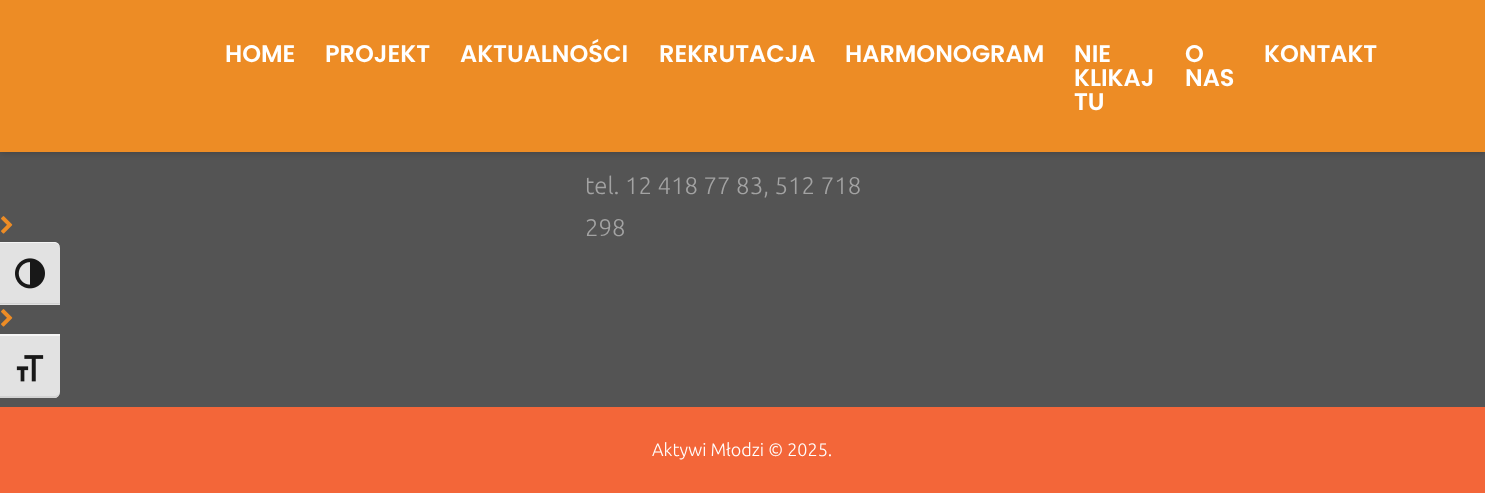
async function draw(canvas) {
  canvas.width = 1485
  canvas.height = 493
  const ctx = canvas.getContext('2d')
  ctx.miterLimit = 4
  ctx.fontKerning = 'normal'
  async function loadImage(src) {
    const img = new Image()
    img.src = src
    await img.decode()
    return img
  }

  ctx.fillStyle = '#f36639'
  ctx.fillRect(0, 0, 1485, 493)
  ctx.fillStyle = '#545454'
  ctx.fillRect(0, 152, 1485, 255)
  ctx.drawImage(await loadImage('image0.png'), 1, 216, 12, 18)
  ctx.fillStyle = '#e2e2e2'
  ctx.beginPath()
  ctx.roundRect(0, 242, 60, 63, [0, 6, 0, 0])
  ctx.fill()
  ctx.fillStyle = '#f5f5f5'
  ctx.beginPath()
  ctx.moveTo(0, 243)
  ctx.lineTo(54, 243)
  ctx.bezierCurveTo(57, 243, 60, 245, 60, 248)
  ctx.bezierCurveTo(60, 244, 57, 242, 54, 242)
  ctx.lineTo(0, 242)
  ctx.closePath()
  ctx.fill()
  ctx.fillStyle = '#d2d2d2'
  ctx.fillRect(0, 303, 60, 1)
  ctx.drawImage(await loadImage('image1.png'), 15, 258, 30, 31)
  ctx.drawImage(await loadImage('image0.png'), 1, 309, 12, 18)
  ctx.fillStyle = '#e2e2e2'
  ctx.beginPath()
  ctx.roundRect(0, 335, 60, 63, [0, 0, 6, 0])
  ctx.fill()
  ctx.fillStyle = '#f5f5f5'
  ctx.fillRect(0, 334, 60, 2)
  ctx.fillStyle = '#d2d2d2'
  ctx.beginPath()
  ctx.moveTo(56, 398)
  ctx.bezierCurveTo(58, 397, 60, 394, 60, 392)
  ctx.bezierCurveTo(60, 394, 57, 396, 54, 396)
  ctx.lineTo(0, 396)
  ctx.lineTo(0, 398)
  ctx.closePath()
  ctx.fill()
  ctx.drawImage(await loadImage('image2.png'), 16, 355, 28, 27)
  ctx.fillStyle = '#00000033'
  ctx.filter = 'blur(3px)'
  ctx.beginPath()
  ctx.rect(0, 2, 1485, 151)
  ctx.fill()
  ctx.filter = 'none'
  ctx.fillStyle = '#ed8c25'
  ctx.fillRect(0, 0, 1485, 152)
  ctx.font = '600 24px Poppins'
  ctx.fillStyle = '#fff'
  ctx.fillText('HOME', 225, 62)
  ctx.fillText('PROJEKT', 325, 62)
  ctx.fillText('AKTUALNOŚCI', 460, 62)
  ctx.fillText('REKRUTACJA', 659, 62)
  ctx.fillText('HARMONOGRAM', 845, 62)
  ctx.fillText('NIE', 1074, 62)
  ctx.fillText('KLIKAJ', 1074, 86)
  ctx.fillText('TU', 1074, 110)
  ctx.fillText('O', 1185, 62)
  ctx.fillText('NAS', 1185, 86)
  ctx.fillText('KONTAKT', 1264, 62)
  ctx.font = '300 24px Ubuntu'
  ctx.fillStyle = '#a3a3a3'
  ctx.fillText('tel. 12 418 77 83, 512 718', 585, 194)
  ctx.fillText('298', 585, 236)
  ctx.font = '300 18px Ubuntu'
  ctx.fillStyle = '#fff'
  ctx.fillText('Aktywi Młodzi © 2025.', 652, 456)
}

draw(document.querySelector('canvas'))
